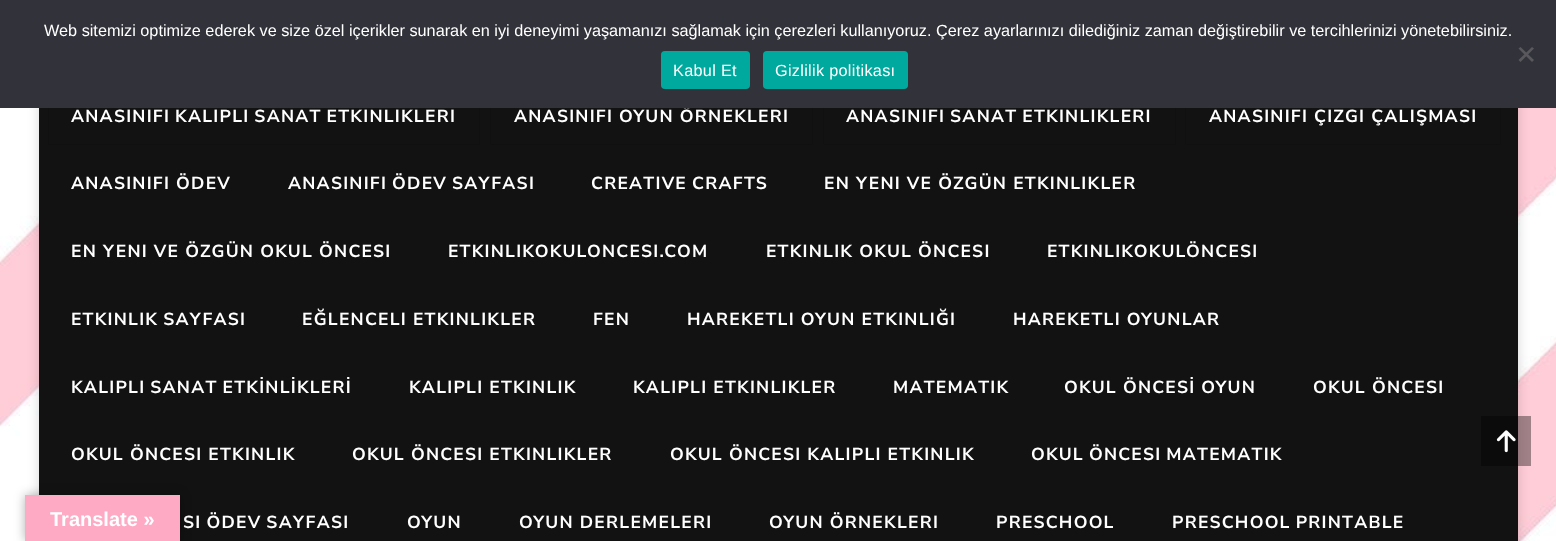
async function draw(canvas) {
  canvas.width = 1556
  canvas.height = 541
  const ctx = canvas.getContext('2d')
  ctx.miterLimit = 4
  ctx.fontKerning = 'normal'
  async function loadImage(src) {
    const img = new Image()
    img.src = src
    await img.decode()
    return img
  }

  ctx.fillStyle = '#fff'
  ctx.fillRect(0, 0, 1556, 541)
  ctx.drawImage(await loadImage('image0.png'), 0, 108, 1556, 433)
  ctx.fillStyle = '#00000029'
  ctx.filter = 'blur(6px)'
  ctx.beginPath()
  ctx.rect(39, -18, 1479, 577)
  ctx.fill()
  ctx.filter = 'none'
  ctx.fillStyle = '#121212'
  ctx.fillRect(39, 108, 1479, 433)
  ctx.strokeStyle = '#101010'
  ctx.strokeRect(48.5, 89.5, 431, 55)
  ctx.strokeRect(490.5, 89.5, 322, 55)
  ctx.letterSpacing = '1.25px'
  ctx.font = 'bold 17.5px Nunito Sans'
  ctx.fillStyle = '#fff'
  ctx.fillText('ANASINIFI OYUN ÖRNEKLERI', 514, 122)
  ctx.strokeRect(823.5, 89.5, 352, 55)
  ctx.strokeRect(1185.5, 89.5, 315, 55)
  ctx.fillStyle = '#32323a'
  ctx.fillRect(0, 0, 1556, 108)
  ctx.letterSpacing = '0px'
  ctx.font = '16.25px Liberation Sans'
  ctx.fillStyle = '#fff'
  ctx.fillText('Web sitemizi optimize ederek ve size özel içerikler sunarak en iyi deneyimi yaşamanızı sağlamak için çerezleri kullanıyoruz. Çerez ayarlarınızı dilediğiniz zaman değiştirebilir ve tercihlerinizi yönetebilirsiniz.', 44, 36)
  ctx.fillStyle = '#59595d'
  ctx.beginPath()
  ctx.moveTo(1532, 47)
  ctx.lineTo(1534, 48.5)
  ctx.lineTo(1520.5, 62)
  ctx.lineTo(1518.5, 60)
  ctx.closePath()
  ctx.fill()
  ctx.beginPath()
  ctx.moveTo(1518.5, 48.5)
  ctx.lineTo(1520.5, 47)
  ctx.lineTo(1534, 60)
  ctx.lineTo(1532, 62)
  ctx.closePath()
  ctx.fill()
  ctx.fillStyle = '#00a99d'
  ctx.beginPath()
  ctx.roundRect(661, 51, 89, 38, 4)
  ctx.fill()
  ctx.letterSpacing = '0.3px'
  ctx.fillStyle = '#fff'
  ctx.fillText('Kabul Et', 673, 76)
  ctx.fillStyle = '#00a99d'
  ctx.beginPath()
  ctx.roundRect(763, 51, 145, 38, 4)
  ctx.fill()
  ctx.fillStyle = '#fff'
  ctx.fillText('Gizlilik politikası', 775, 76)
  ctx.letterSpacing = '1.25px'
  ctx.wordSpacing = '-1px'
  ctx.font = 'bold 17.5px Nunito Sans'
  ctx.fillText('ANASINIFI KALIPLI SANAT ETKINLIKLERI', 71, 122)
  ctx.fillText('ANASINIFI SANAT ETKINLIKLERI', 846, 122)
  ctx.wordSpacing = '0px'
  ctx.fillText('ANASINIFI ÇIZGI ÇALIŞMASI', 1209, 122)
  ctx.fillText('ANASINIFI ÖDEV', 71, 189)
  ctx.wordSpacing = '-1px'
  ctx.fillText('ANASINIFI ÖDEV SAYFASI', 288, 189)
  ctx.fillText('CREATIVE CRAFTS', 591, 189)
  ctx.wordSpacing = '0px'
  ctx.fillText('EN YENI VE ÖZGÜN ETKINLIKLER', 824, 189)
  ctx.fillText('EN YENI VE ÖZGÜN OKUL ÖNCESI', 71, 257)
  ctx.fillText('ETKINLIKOKULONCESI.COM', 448, 257)
  ctx.fillText('ETKINLIK OKUL ÖNCESI', 766, 257)
  ctx.fillText('ETKINLIKOKULÖNCESI', 1047, 257)
  ctx.wordSpacing = '-1px'
  ctx.fillText('ETKINLIK SAYFASI', 71, 325)
  ctx.wordSpacing = '0px'
  ctx.fillText('EĞLENCELI ETKINLIKLER', 302, 325)
  ctx.fillText('FEN', 593, 325)
  ctx.fillText('HAREKETLI OYUN ETKINLIĞI', 687, 325)
  ctx.fillText('HAREKETLI OYUNLAR', 1013, 325)
  ctx.wordSpacing = '-1px'
  ctx.fillText('KALIPLI SANAT ETKİNLİKLERİ', 71, 393)
  ctx.wordSpacing = '0px'
  ctx.fillText('KALIPLI ETKINLIK', 409, 393)
  ctx.fillText('KALIPLI ETKINLIKLER', 633, 393)
  ctx.fillText('MATEMATIK', 893, 393)
  ctx.fillText('OKUL ÖNCESİ OYUN', 1064, 393)
  ctx.fillText('OKUL ÖNCESI', 1313, 393)
  ctx.fillText('OKUL ÖNCESI ETKINLIK', 71, 460)
  ctx.fillText('OKUL ÖNCESI ETKINLIKLER', 352, 460)
  ctx.fillText('OKUL ÖNCESI KALIPLI ETKINLIK', 670, 460)
  ctx.wordSpacing = '-1px'
  ctx.fillText('OKUL ÖNCESI MATEMATIK', 1031, 460)
  ctx.fillText('SI ÖDEV SAYFASI', 183, 528)
  ctx.wordSpacing = '0px'
  ctx.fillText('OYUN', 407, 528)
  ctx.fillText('OYUN DERLEMELERI', 519, 528)
  ctx.fillText('OYUN ÖRNEKLERI', 769, 528)
  ctx.fillText('PRESCHOOL', 996, 528)
  ctx.wordSpacing = '-1px'
  ctx.fillText('PRESCHOOL PRINTABLE', 1172, 528)
  ctx.fillStyle = '#0000005e'
  ctx.fillRect(1481, 416, 50, 50)
  ctx.drawImage(await loadImage('image1.png'), 1496, 430, 20, 23)
  ctx.fillStyle = '#0000004d'
  ctx.filter = 'blur(5.5px)'
  ctx.beginPath()
  ctx.rect(25, 495, 155, 46)
  ctx.fill()
  ctx.filter = 'none'
  ctx.fillStyle = '#ffaac5'
  ctx.fillRect(25, 495, 155, 46)
  ctx.letterSpacing = '0px'
  ctx.wordSpacing = '0px'
  ctx.font = 'bold 20px Liberation Sans'
  ctx.fillStyle = '#fff'
  ctx.fillText('Translate »', 50, 526)
}

draw(document.querySelector('canvas'))
